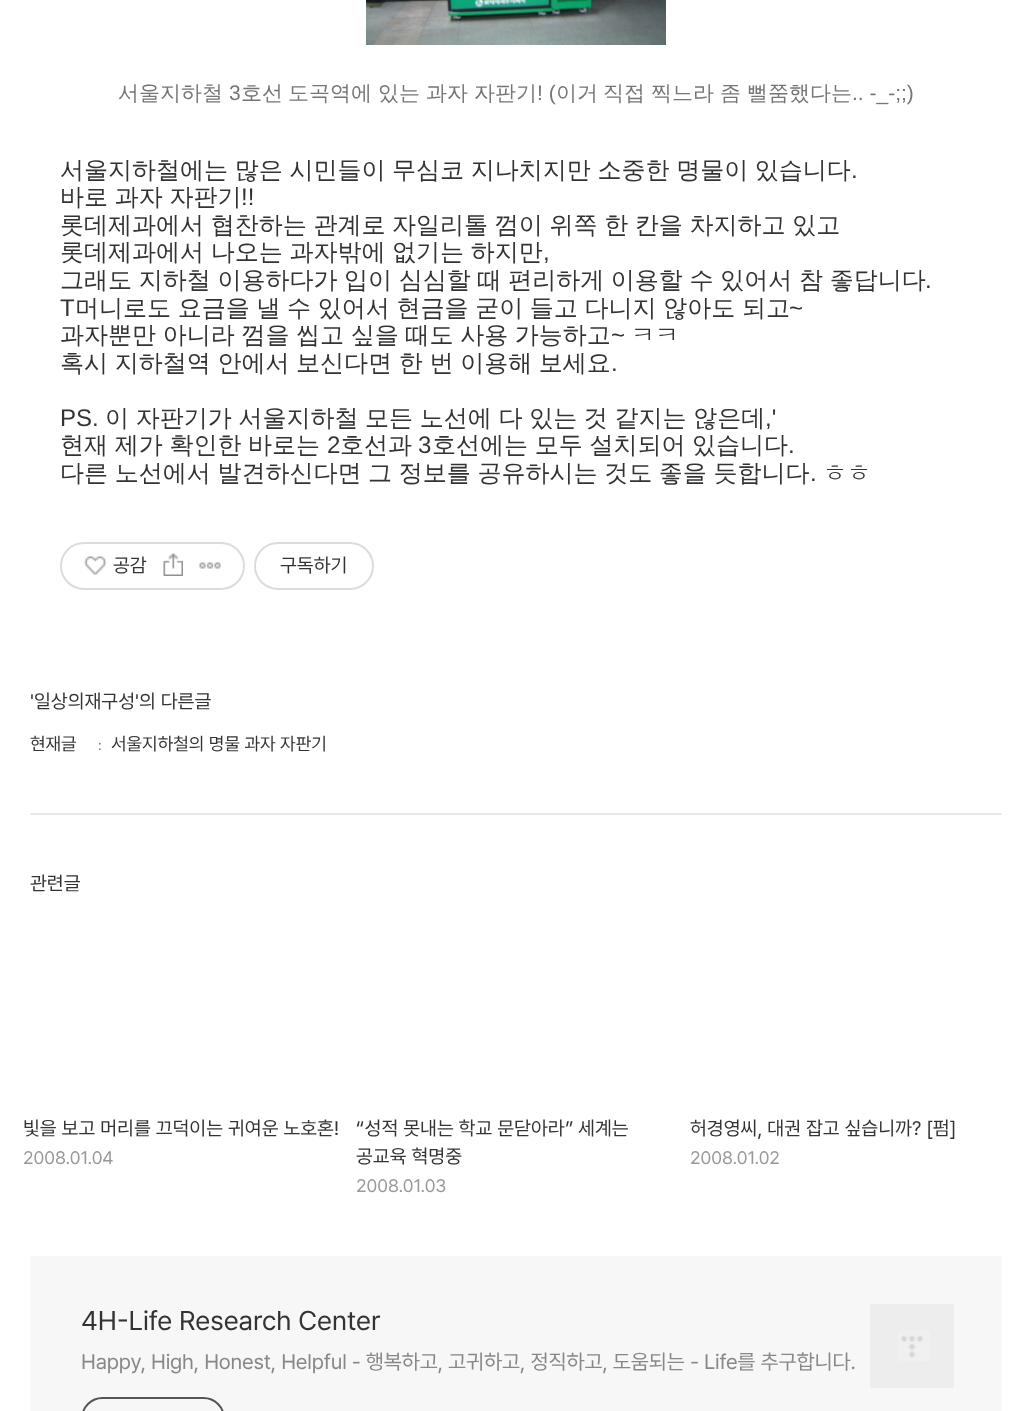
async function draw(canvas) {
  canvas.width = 1031
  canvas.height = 1411
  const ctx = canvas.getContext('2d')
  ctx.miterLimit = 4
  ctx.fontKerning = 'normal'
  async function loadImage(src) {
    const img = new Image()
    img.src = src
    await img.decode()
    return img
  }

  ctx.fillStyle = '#fff'
  ctx.fillRect(0, 0, 1031, 1411)
  ctx.drawImage(await loadImage('image0.png'), 366, 0, 300, 45)
  ctx.font = '500 21px WenQuanYi Zen Hei'
  ctx.fillStyle = '#757575'
  ctx.fillText('서울지하철', 118, 100)
  ctx.font = '21px Liberation Sans'
  ctx.fillText('3', 229, 100)
  ctx.font = '500 21px WenQuanYi Zen Hei'
  ctx.fillText('호선', 241, 100)
  ctx.fillText('도곡역에', 288, 100)
  ctx.fillText('있는', 378, 100)
  ctx.fillText('과자', 426, 100)
  ctx.fillText('자판기', 474, 100)
  ctx.font = '21px Liberation Sans'
  ctx.fillText('! (', 537, 100)
  ctx.font = '500 21px WenQuanYi Zen Hei'
  ctx.fillText('이거', 556, 100)
  ctx.fillText('직접', 603, 100)
  ctx.fillText('찍느라', 651, 100)
  ctx.fillText('좀', 720, 100)
  ctx.fillText('뻘쭘했다는', 747, 100)
  ctx.font = '21px Liberation Sans'
  ctx.fillText('.. -_-;;)', 852, 100)
  ctx.wordSpacing = '-0.5px'
  ctx.font = '500 24px WenQuanYi Zen Hei'
  ctx.fillStyle = '#333'
  ctx.fillText('서울지하철에는 많은 시민들이 무심코 지나치지만 소중한 명물이 있습니다', 60, 178)
  ctx.wordSpacing = '0px'
  ctx.font = '24px Liberation Sans'
  ctx.fillText('.', 851, 178)
  ctx.wordSpacing = '-0.5px'
  ctx.font = '500 24px WenQuanYi Zen Hei'
  ctx.fillText('바로 과자 자판기', 60, 205)
  ctx.wordSpacing = '0px'
  ctx.font = '24px Liberation Sans'
  ctx.fillText('!!', 241, 205)
  ctx.wordSpacing = '-0.5px'
  ctx.font = '500 24px WenQuanYi Zen Hei'
  ctx.fillText('롯데제과에서 협찬하는 관계로 자일리톨 껌이 위쪽 한 칸을 차지하고 있고', 60, 233)
  ctx.fillText('롯데제과에서 나오는 과자밖에 없기는 하지만', 60, 260)
  ctx.wordSpacing = '0px'
  ctx.font = '24px Liberation Sans'
  ctx.fillText(',', 543, 260)
  ctx.wordSpacing = '-0.5px'
  ctx.font = '500 24px WenQuanYi Zen Hei'
  ctx.fillText('그래도 지하철 이용하다가 입이 심심할 때 편리하게 이용할 수 있어서 참 좋답니다', 60, 288)
  ctx.wordSpacing = '0px'
  ctx.font = '24px Liberation Sans'
  ctx.fillText('.', 925, 288)
  ctx.fillText('T', 60, 316)
  ctx.wordSpacing = '-0.5px'
  ctx.font = '500 24px WenQuanYi Zen Hei'
  ctx.fillText('머니로도 요금을 낼 수 있어서 현금을 굳이 들고 다니지 않아도 되고', 75, 316)
  ctx.wordSpacing = '0px'
  ctx.font = '24px Liberation Sans'
  ctx.fillText('~', 789, 316)
  ctx.wordSpacing = '-0.5px'
  ctx.font = '500 24px WenQuanYi Zen Hei'
  ctx.fillText('과자뿐만 아니라 껌을 씹고 싶을 때도 사용 가능하고', 60, 343)
  ctx.wordSpacing = '0px'
  ctx.font = '24px Liberation Sans'
  ctx.fillText('~', 611, 343)
  ctx.font = '500 24px WenQuanYi Zen Hei'
  ctx.fillText('ㅋㅋ', 631, 343)
  ctx.wordSpacing = '-0.5px'
  ctx.fillText('혹시 지하철역 안에서 보신다면 한 번 이용해 보세요', 60, 371)
  ctx.wordSpacing = '0px'
  ctx.font = '24px Liberation Sans'
  ctx.fillText('.', 611, 371)
  ctx.fillText('PS.', 60, 426)
  ctx.wordSpacing = '-0.5px'
  ctx.font = '500 24px WenQuanYi Zen Hei'
  ctx.fillText('이 자판기가 서울지하철 모든 노선에 다 있는 것 같지는 않은데', 105, 426)
  ctx.wordSpacing = '0px'
  ctx.font = '24px Liberation Sans'
  ctx.fillText(',\'', 765, 426)
  ctx.wordSpacing = '-0.5px'
  ctx.font = '500 24px WenQuanYi Zen Hei'
  ctx.fillText('현재 제가 확인한 바로는', 60, 453)
  ctx.wordSpacing = '0px'
  ctx.font = '24px Liberation Sans'
  ctx.fillText('2', 327, 453)
  ctx.font = '500 24px WenQuanYi Zen Hei'
  ctx.fillText('호선과', 340, 453)
  ctx.font = '24px Liberation Sans'
  ctx.fillText('3', 418, 453)
  ctx.wordSpacing = '-0.5px'
  ctx.font = '500 24px WenQuanYi Zen Hei'
  ctx.fillText('호선에는 모두 설치되어 있습니다', 432, 453)
  ctx.wordSpacing = '0px'
  ctx.font = '24px Liberation Sans'
  ctx.fillText('.', 788, 453)
  ctx.wordSpacing = '-0.5px'
  ctx.font = '500 24px WenQuanYi Zen Hei'
  ctx.fillText('다른 노선에서 발견하신다면 그 정보를 공유하시는 것도 좋을 듯합니다', 60, 481)
  ctx.wordSpacing = '0px'
  ctx.font = '24px Liberation Sans'
  ctx.fillText('.', 810, 481)
  ctx.font = '500 24px WenQuanYi Zen Hei'
  ctx.fillText('ㅎㅎ', 823, 481)
  ctx.beginPath()
  ctx.roundRect(61, 543, 183, 46, 23)
  ctx.strokeStyle = '#dcdcdc'
  ctx.lineWidth = 2
  ctx.stroke()
  ctx.drawImage(await loadImage('image1.png'), 84, 556, 23, 19)
  ctx.font = '19.5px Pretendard'
  ctx.fillText('공감', 113, 572)
  ctx.drawImage(await loadImage('image2.png'), 163, 553, 20, 23)
  ctx.drawImage(await loadImage('image3.png'), 199, 562, 22, 7)
  ctx.beginPath()
  ctx.roundRect(255, 543, 118, 46, 23)
  ctx.stroke()
  ctx.fillText('구독하기', 280, 572)
  ctx.fillStyle = '#e8e8e8'
  ctx.fillRect(30, 813, 972, 2)
  ctx.fillStyle = '#333'
  ctx.fillText('\'일상의재구성\'의 다른글', 30, 708)
  ctx.font = '18px Pretendard'
  ctx.fillText('현재글', 30, 750)
  ctx.font = '14px Pretendard'
  ctx.fillStyle = '#757575'
  ctx.fillText(':', 98, 750)
  ctx.font = '18px Pretendard'
  ctx.fillStyle = '#333'
  ctx.fillText('서울지하철의 명물 과자 자판기', 111, 750)
  ctx.font = '19.5px Pretendard'
  ctx.fillText('관련글', 30, 890)
  ctx.fillText('빛을 보고 머리를 끄덕이는 귀여운 노호혼!', 23, 1135)
  ctx.font = '18px Pretendard'
  ctx.fillStyle = '#999'
  ctx.fillText('2008.01.04', 23, 1164)
  ctx.font = '19.5px Pretendard'
  ctx.fillStyle = '#333'
  ctx.fillText('“성적 못내는 학교 문닫아라” 세계는', 356, 1135)
  ctx.fillText('공교육 혁명중', 356, 1163)
  ctx.font = '18px Pretendard'
  ctx.fillStyle = '#999'
  ctx.fillText('2008.01.03', 356, 1192)
  ctx.font = '19.5px Pretendard'
  ctx.fillStyle = '#333'
  ctx.fillText('허경영씨, 대권 잡고 싶습니까? [펌]', 690, 1135)
  ctx.font = '18px Pretendard'
  ctx.fillStyle = '#999'
  ctx.fillText('2008.01.02', 690, 1164)
  ctx.fillStyle = '#f7f7f7'
  ctx.fillRect(30, 1256, 972, 155)
  ctx.font = '27px Pretendard'
  ctx.fillStyle = '#333'
  ctx.fillText('4H-Life Research Center', 81, 1330)
  ctx.letterSpacing = '-0.15px'
  ctx.font = '21px Pretendard'
  ctx.fillStyle = '#888'
  ctx.fillText('Happy, High, Honest, Helpful - 행복하고, 고귀하고, 정직하고, 도움되는 - Life를 추구합니다.', 81, 1369)
  ctx.beginPath()
  ctx.roundRect(82, 1398, 142, 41, 26)
  ctx.strokeStyle = '#555'
  ctx.stroke()
  ctx.drawImage(await loadImage('image4.png'), 898, 1331, 32, 30)
  ctx.fillStyle = '#0000000a'
  ctx.fillRect(870, 1304, 84, 84)
}

draw(document.querySelector('canvas'))
